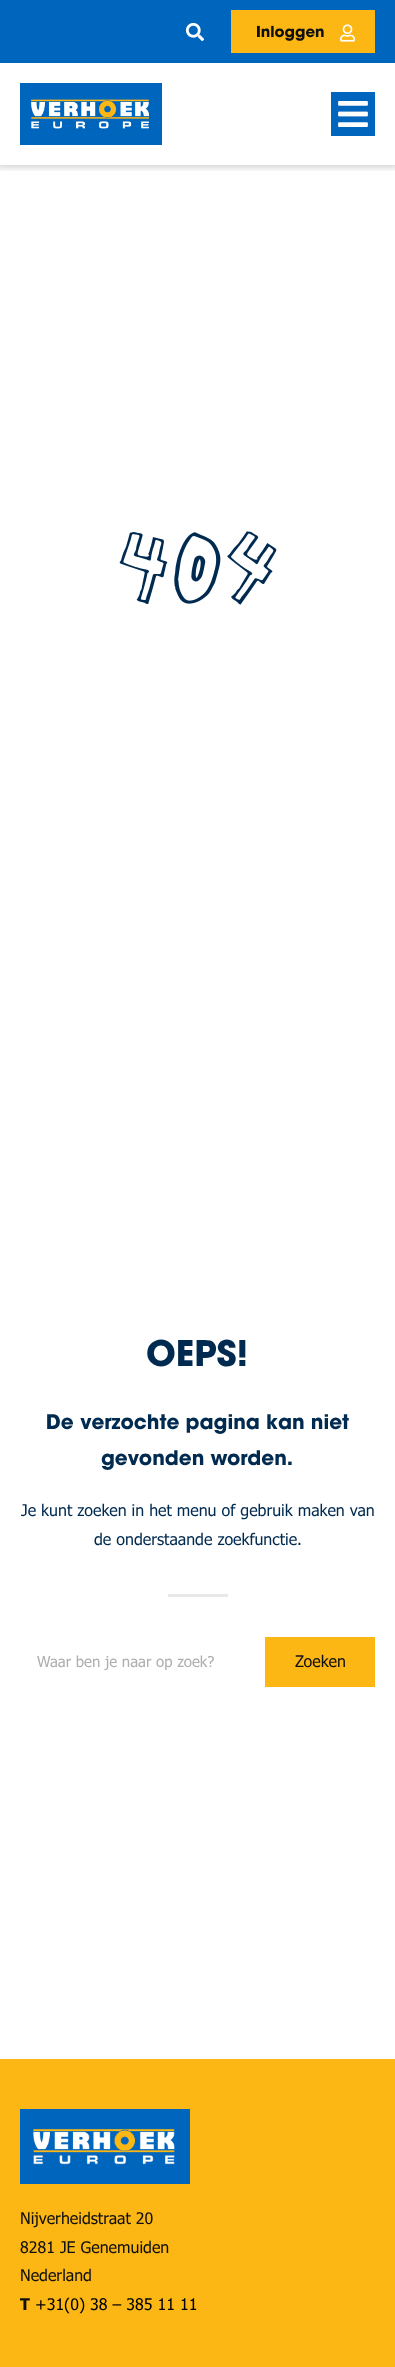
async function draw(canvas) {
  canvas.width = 395
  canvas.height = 2367
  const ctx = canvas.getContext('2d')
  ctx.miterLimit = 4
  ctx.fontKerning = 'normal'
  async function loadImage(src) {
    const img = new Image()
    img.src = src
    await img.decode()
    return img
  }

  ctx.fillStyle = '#fff'
  ctx.fillRect(0, 0, 395, 2367)
  ctx.save()
  ctx.beginPath()
  ctx.rect(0, 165, 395, 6)
  ctx.clip()
  ctx.fillStyle = '#00000029'
  ctx.filter = 'blur(3px)'
  ctx.beginPath()
  ctx.rect(-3, 60, 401, 108)
  ctx.fill()
  ctx.filter = 'none'
  ctx.restore()
  ctx.fillStyle = '#0065bd'
  ctx.fillRect(0, 0, 395, 63)
  ctx.drawImage(await loadImage('image0.png'), 186, 23, 18, 18)
  ctx.fillStyle = '#fcb714'
  ctx.fillRect(231, 10, 144, 43)
  ctx.font = 'bold 15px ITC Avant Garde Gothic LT'
  ctx.fillStyle = '#101010'
  ctx.fillText('Inloggen', 256, 37)
  ctx.drawImage(await loadImage('image1.png'), 340, 24, 15, 18)
  ctx.drawImage(await loadImage('image2.png'), 20, 83, 142, 62)
  ctx.fillStyle = '#0065bd'
  ctx.fillRect(331, 92, 44, 44)
  ctx.drawImage(await loadImage('image3.png'), 338, 101, 30, 26)
  ctx.drawImage(await loadImage('image4.png'), 119, 531, 158, 74)
  ctx.font = 'bold 35px ITC Avant Garde Gothic LT'
  ctx.fillStyle = '#002a4f'
  ctx.fillText('OEPS!', 146, 1366)
  ctx.font = 'bold 20px ITC Avant Garde Gothic LT'
  ctx.fillText('De verzochte pagina kan niet', 46, 1429)
  ctx.fillText('gevonden worden.', 101, 1465)
  ctx.font = '16px Tahoma'
  ctx.fillText('Je kunt zoeken in het menu of gebruik maken van', 21, 1516)
  ctx.fillText('de onderstaande zoekfunctie.', 94, 1545)
  ctx.fillStyle = '#e8e8e8'
  ctx.fillRect(168, 1594, 60, 3)
  ctx.font = '15px Tahoma'
  ctx.fillStyle = '#afafaf'
  ctx.fillText('Waar ben je naar op zoek?', 37, 1667)
  ctx.fillStyle = '#fcb714'
  ctx.fillRect(265, 1637, 110, 50)
  ctx.font = '16px Tahoma'
  ctx.fillStyle = '#101010'
  ctx.fillText('Zoeken', 295, 1667)
  ctx.fillStyle = '#fcb714'
  ctx.fillRect(0, 2059, 395, 308)
  ctx.drawImage(await loadImage('image5.png'), 20, 2109, 170, 75)
  ctx.fillStyle = '#101010'
  ctx.fillText('Nijverheidstraat 20', 20, 2224)
  ctx.fillText('8281 JE Genemuiden', 20, 2253)
  ctx.fillText('Nederland', 20, 2281)
  ctx.font = 'bold 16px Tahoma'
  ctx.fillText('T', 20, 2310)
  ctx.font = '16px Tahoma'
  ctx.fillStyle = '#000'
  ctx.fillText('+31(0) 38 – 385 11 11', 35, 2310)
}

draw(document.querySelector('canvas'))
